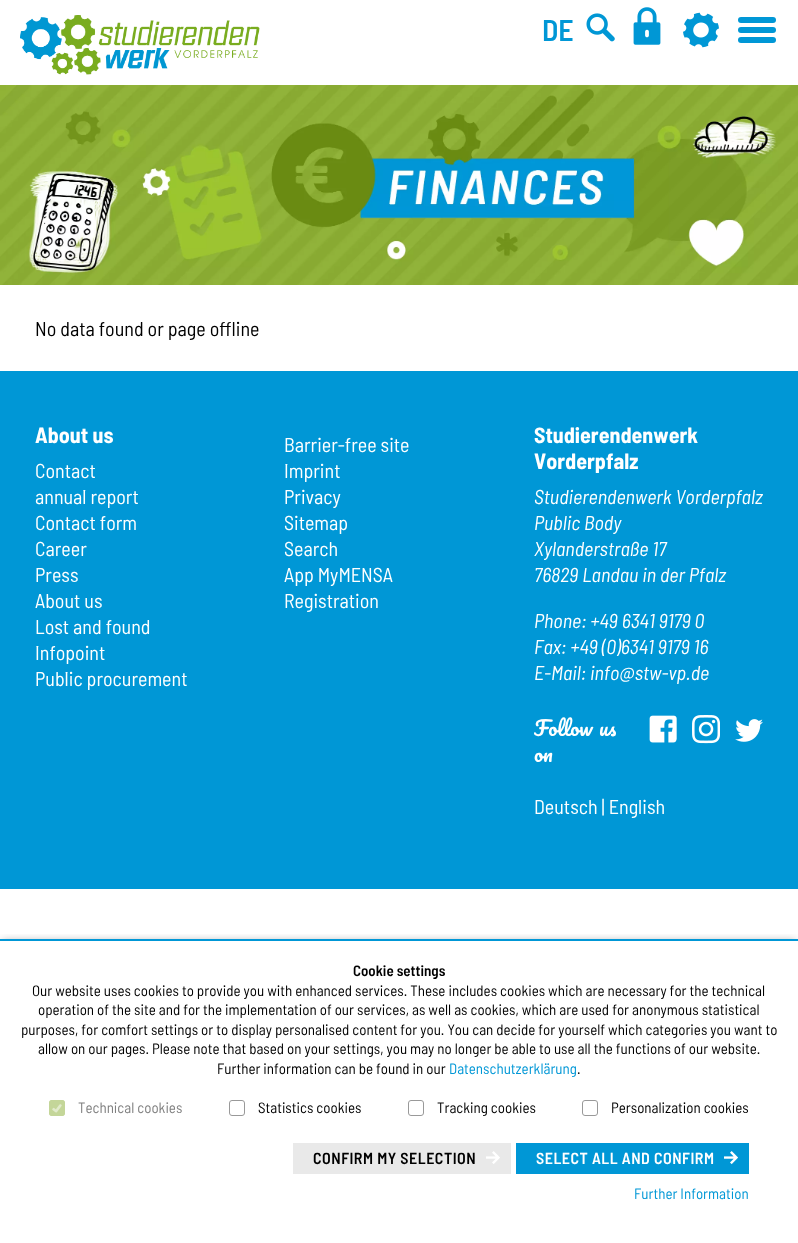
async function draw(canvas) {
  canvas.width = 798
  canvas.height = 1243
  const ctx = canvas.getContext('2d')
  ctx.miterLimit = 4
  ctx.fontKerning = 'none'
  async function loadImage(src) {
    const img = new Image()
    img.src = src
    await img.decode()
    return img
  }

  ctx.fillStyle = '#fff'
  ctx.fillRect(0, 0, 798, 1243)
  ctx.drawImage(await loadImage('image0.png'), 20, 15, 240, 60)
  ctx.font = '600 30px Barlow Semi Condensed'
  ctx.fillStyle = '#0097d6'
  ctx.fillText('DE', 542, 41)
  ctx.drawImage(await loadImage('image1.png'), 586, 13, 29, 29)
  ctx.drawImage(await loadImage('image2.png'), 633, 7, 28, 38)
  ctx.drawImage(await loadImage('image3.png'), 683, 12, 36, 36)
  ctx.beginPath()
  ctx.roundRect(738, 27, 38, 6, 3)
  ctx.fill()
  ctx.beginPath()
  ctx.roundRect(738, 17, 38, 6, 3)
  ctx.fill()
  ctx.beginPath()
  ctx.roundRect(738, 37, 38, 6, 3)
  ctx.fill()
  ctx.drawImage(await loadImage('image4.png'), 0, 85, 798, 200)
  ctx.font = '20px Barlow Semi Condensed'
  ctx.fillStyle = '#000'
  ctx.fillText('No data found or page offline', 35, 336)
  ctx.fillStyle = '#0097d6'
  ctx.fillRect(0, 371, 798, 518)
  ctx.font = 'bold 22px Barlow Semi Condensed'
  ctx.fillStyle = '#fff'
  ctx.fillText('About us', 35, 443)
  ctx.font = '20px Barlow Semi Condensed'
  ctx.fillText('Contact', 35, 478)
  ctx.fillText('annual report', 35, 504)
  ctx.fillText('Contact form', 35, 530)
  ctx.fillText('Career', 35, 556)
  ctx.fillText('Press', 35, 582)
  ctx.fillText('About us', 35, 608)
  ctx.fillText('Lost and found', 35, 634)
  ctx.fillText('Infopoint', 35, 660)
  ctx.fillText('Public procurement', 35, 686)
  ctx.fillText('Barrier-free site', 284, 452)
  ctx.fillText('Imprint', 284, 478)
  ctx.fillText('Privacy', 284, 504)
  ctx.fillText('Sitemap', 284, 530)
  ctx.fillText('Search', 284, 556)
  ctx.fillText('App MyMENSA', 284, 582)
  ctx.fillText('Registration', 284, 608)
  ctx.font = 'bold 22px Barlow Semi Condensed'
  ctx.fillText('Studierendenwerk', 534, 443)
  ctx.fillText('Vorderpfalz', 534, 469)
  ctx.font = 'italic 20px Barlow Semi Condensed'
  ctx.fillText('Studierendenwerk Vorderpfalz', 534, 504)
  ctx.fillText('Public Body', 534, 530)
  ctx.fillText('Xylanderstraße 17', 534, 556)
  ctx.fillText('76829 Landau in der Pfalz', 534, 582)
  ctx.fillText('Phone: +49 6341 9179 0', 534, 628)
  ctx.fillText('Fax: +49 (0)6341 9179 16', 534, 654)
  ctx.fillText('E-Mail: info@stw-vp.de', 534, 680)
  ctx.wordSpacing = '1px'
  ctx.font = '20px Pacifico'
  ctx.fillText('Follow us', 534, 736)
  ctx.drawImage(await loadImage('image5.png'), 649, 715, 28, 28)
  ctx.drawImage(await loadImage('image6.png'), 692, 715, 28, 29)
  ctx.drawImage(await loadImage('image7.png'), 735, 719, 28, 23)
  ctx.wordSpacing = '0px'
  ctx.fillText('on', 534, 762)
  ctx.font = '20px Barlow Semi Condensed'
  ctx.fillText('Deutsch | English', 534, 814)
  ctx.save()
  ctx.beginPath()
  ctx.rect(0, 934, 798, 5)
  ctx.clip()
  ctx.fillStyle = '#00000059'
  ctx.filter = 'blur(4.5px)'
  ctx.beginPath()
  ctx.rect(2, 941, 794, 300)
  ctx.fill()
  ctx.filter = 'none'
  ctx.restore()
  ctx.fillStyle = '#0097d6'
  ctx.fillRect(0, 939, 798, 2)
  ctx.font = '600 15px Barlow Semi Condensed'
  ctx.fillStyle = '#000'
  ctx.fillText('Cookie settings', 353, 976)
  ctx.font = '15px Barlow Semi Condensed'
  ctx.fillText('Our website uses cookies to provide you with enhanced services. These includes cookies which are necessary for the technical', 32, 996)
  ctx.fillText('operation of the site and for the implementation of our services, as well as cookies, which are used for anonymous statistical', 38, 1015)
  ctx.fillText('purposes, for comfort settings or to display personalised content for you. You can decide for yourself which categories you', 21, 1035)
  ctx.fillText('want to', 734, 1035)
  ctx.fillText('allow on our pages. Please note that based on your settings, you may no longer be able to use all the functions of our website.', 38, 1054)
  ctx.fillText('Further information can be found in our', 217, 1074)
  ctx.fillStyle = '#0097d6'
  ctx.fillText('Datenschutzerklärung', 449, 1074)
  ctx.fillStyle = '#000'
  ctx.fillText('.', 577, 1074)
  ctx.fillStyle = '#c4d699'
  ctx.beginPath()
  ctx.roundRect(49, 1100, 16, 16, 3)
  ctx.fill()
  ctx.drawImage(await loadImage('image8.png'), 52, 1104, 10, 9)
  ctx.beginPath()
  ctx.roundRect(49.5, 1100.5, 15, 15, 2.5)
  ctx.strokeStyle = '#c4d699'
  ctx.stroke()
  ctx.fillStyle = '#808080'
  ctx.fillText('Technical cookies', 78, 1113)
  ctx.beginPath()
  ctx.roundRect(229.5, 1100.5, 15, 15, 2.5)
  ctx.strokeStyle = '#999'
  ctx.stroke()
  ctx.fillStyle = '#000'
  ctx.fillText('Statistics cookies', 258, 1113)
  ctx.beginPath()
  ctx.roundRect(408.5, 1100.5, 15, 15, 2.5)
  ctx.stroke()
  ctx.fillText('Tracking cookies', 437, 1113)
  ctx.beginPath()
  ctx.roundRect(582.5, 1100.5, 15, 15, 2.5)
  ctx.stroke()
  ctx.fillText('Personalization cookies', 611, 1113)
  ctx.fillStyle = '#e9e9e9'
  ctx.fillRect(293, 1143, 218, 31)
  ctx.drawImage(await loadImage('image9.png'), 486, 1151, 14, 13)
  ctx.letterSpacing = '0.5px'
  ctx.font = '600 16px Barlow Semi Condensed'
  ctx.fillStyle = '#000'
  ctx.fillText('CONFIRM MY SELECTION', 313, 1164)
  ctx.fillStyle = '#0097d6'
  ctx.fillRect(516, 1143, 233, 31)
  ctx.drawImage(await loadImage('image10.png'), 724, 1151, 14, 14)
  ctx.fillStyle = '#fff'
  ctx.fillText('SELECT ALL AND CONFIRM', 536, 1164)
  ctx.letterSpacing = '0px'
  ctx.font = '15px Barlow Semi Condensed'
  ctx.fillStyle = '#0097d6'
  ctx.fillText('Further Information', 634, 1199)
}

draw(document.querySelector('canvas'))
